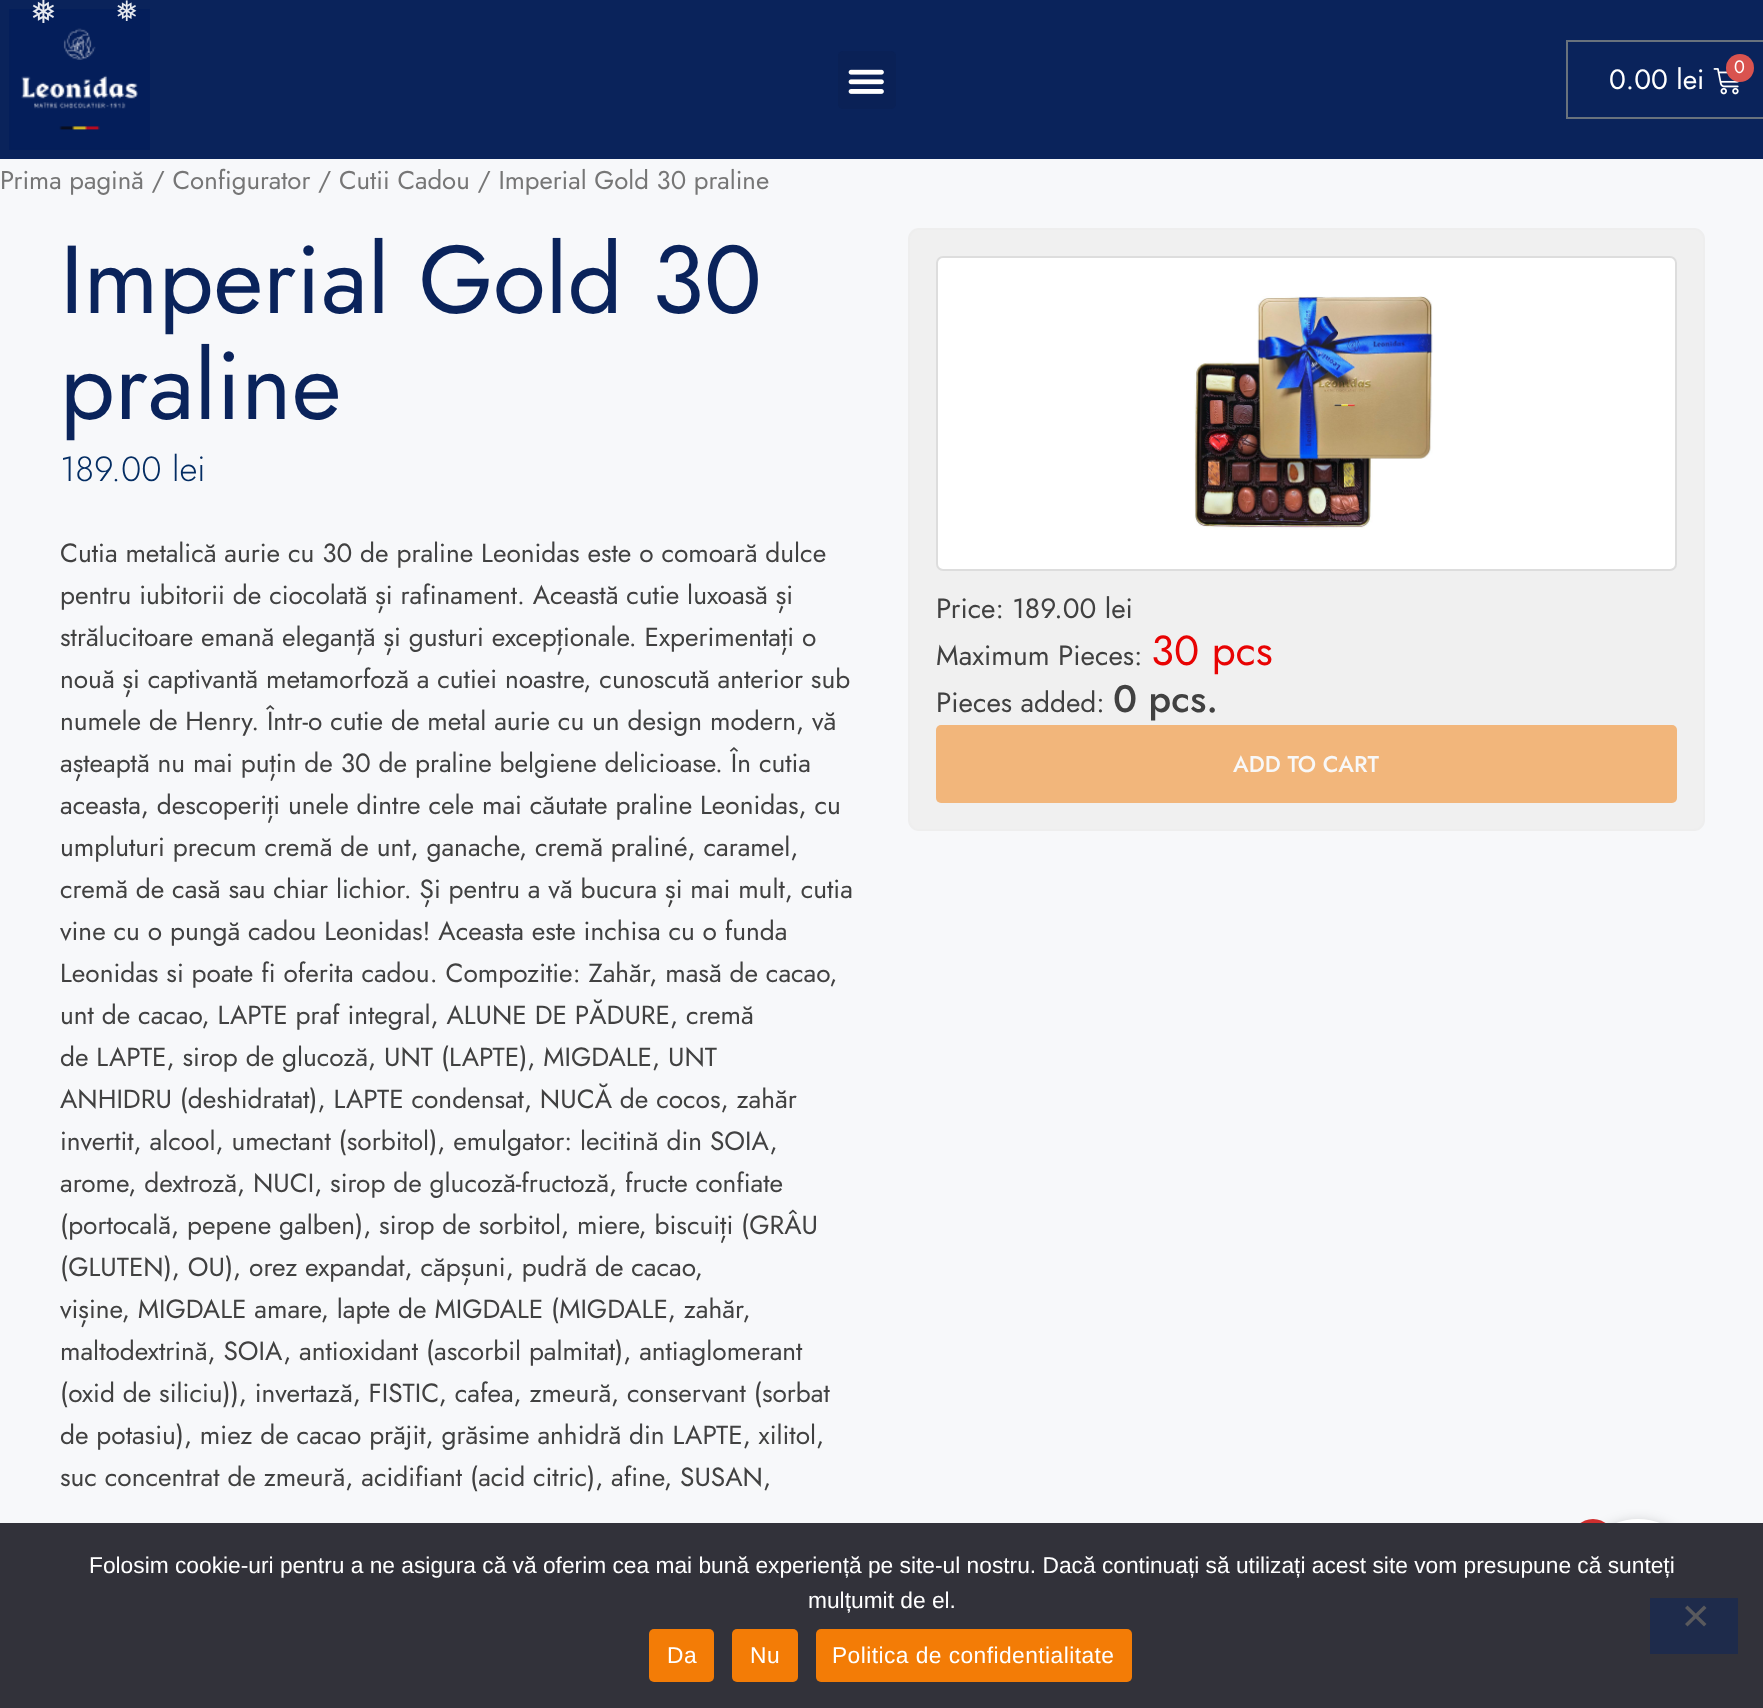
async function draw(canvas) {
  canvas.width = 1763
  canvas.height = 1708
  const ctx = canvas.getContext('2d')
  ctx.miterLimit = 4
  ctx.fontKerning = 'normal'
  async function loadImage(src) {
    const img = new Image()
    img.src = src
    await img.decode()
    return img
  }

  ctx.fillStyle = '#f7f8fa'
  ctx.fillRect(0, 0, 1763, 1708)
  ctx.fillStyle = '#0a235b'
  ctx.fillRect(0, 0, 1763, 159)
  ctx.drawImage(await loadImage('image0.png'), 9, 9, 141, 141)
  ctx.font = '32px DejaVu Sans'
  ctx.fillStyle = '#e6e9ef'
  ctx.fillText('❅', 30, 23)
  ctx.font = '28px DejaVu Sans'
  ctx.fillText('❅', 115, 21)
  ctx.fillStyle = '#0a2156'
  ctx.beginPath()
  ctx.roundRect(838, 51, 58, 58, 5)
  ctx.fill()
  ctx.drawImage(await loadImage('image1.png'), 848, 69, 36, 25)
  ctx.strokeStyle = '#69727d'
  ctx.lineWidth = 2
  ctx.strokeRect(1567, 41, 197, 77)
  ctx.font = '28px Jost'
  ctx.fillStyle = '#fff'
  ctx.fillText('0.00 lei', 1609, 89)
  ctx.drawImage(await loadImage('image2.png'), 1713, 68, 27, 27)
  ctx.fillStyle = '#d9534f'
  ctx.beginPath()
  ctx.arc(1740, 68, 14, 0, 2 * Math.PI)
  ctx.fill()
  ctx.font = '18px Jost'
  ctx.fillStyle = '#fff'
  ctx.fillText('0', 1734, 73)
  ctx.font = '25.75px Jost'
  ctx.fillStyle = '#767676'
  ctx.fillText('Prima pagină / Configurator / Cutii Cadou / Imperial Gold 30 praline', 0, 189)
  ctx.font = '96.25px Jost'
  ctx.fillStyle = '#0a235b'
  ctx.fillText('Imperial Gold 30', 60, 313)
  ctx.fillText('praline', 60, 419)
  ctx.font = '300 35px Jost'
  ctx.fillStyle = '#042d63'
  ctx.fillText('189.00 lei', 60, 481)
  ctx.font = '26.25px Jost'
  ctx.fillStyle = '#414141'
  ctx.fillText('Cutia metalică aurie cu 30 de praline Leonidas este o comoară dulce', 60, 562)
  ctx.fillText('pentru iubitorii de ciocolată și rafinament. Această cutie luxoasă și', 60, 604)
  ctx.fillText('strălucitoare emană eleganță și gusturi excepționale. Experimentați o', 60, 646)
  ctx.fillText('nouă și captivantă metamorfoză a cutiei noastre, cunoscută anterior sub', 60, 688)
  ctx.fillText('numele de Henry. Într-o cutie de metal aurie cu un design modern, vă', 60, 730)
  ctx.fillText('așteaptă nu mai puțin de 30 de praline belgiene delicioase. În cutia', 60, 772)
  ctx.fillText('aceasta, descoperiți unele dintre cele mai căutate praline Leonidas, cu', 60, 814)
  ctx.fillText('umpluturi precum cremă de unt, ganache, cremă praliné, caramel,', 60, 856)
  ctx.fillText('cremă de casă sau chiar lichior. Și pentru a vă bucura și mai mult, cutia', 60, 898)
  ctx.fillText('vine cu o pungă cadou Leonidas! Aceasta este inchisa cu o funda', 60, 940)
  ctx.fillText('Leonidas si poate fi oferita cadou. Compozitie: Zahăr, masă de cacao,', 60, 982)
  ctx.fillText('unt de cacao, LAPTE praf integral, ALUNE DE PĂDURE, cremă', 60, 1024)
  ctx.fillText('de LAPTE, sirop de glucoză, UNT (LAPTE), MIGDALE, UNT', 60, 1066)
  ctx.fillText('ANHIDRU (deshidratat), LAPTE condensat, NUCĂ de cocos, zahăr', 60, 1108)
  ctx.fillText('invertit, alcool, umectant (sorbitol), emulgator: lecitină din SOIA,', 60, 1150)
  ctx.fillText('arome, dextroză, NUCI, sirop de glucoză-fructoză, fructe confiate', 60, 1192)
  ctx.fillText('(portocală, pepene galben), sirop de sorbitol, miere, biscuiți (GRÂU', 60, 1234)
  ctx.fillText('(GLUTEN), OU), orez expandat, căpșuni, pudră de cacao,', 60, 1276)
  ctx.fillText('vișine, MIGDALE amare, lapte de MIGDALE (MIGDALE, zahăr,', 60, 1318)
  ctx.fillText('maltodextrină, SOIA, antioxidant (ascorbil palmitat), antiaglomerant', 60, 1360)
  ctx.fillText('(oxid de siliciu)), invertază, FISTIC, cafea, zmeură, conservant (sorbat', 60, 1402)
  ctx.fillText('de potasiu), miez de cacao prăjit, grăsime anhidră din LAPTE, xilitol,', 60, 1444)
  ctx.fillText('suc concentrat de zmeură, acidifiant (acid citric), afine, SUSAN,', 60, 1486)
  ctx.fillStyle = '#f0f0f0'
  ctx.beginPath()
  ctx.roundRect(909, 229, 795, 601, 10)
  ctx.fill()
  ctx.strokeStyle = '#eee'
  ctx.stroke()
  ctx.fillStyle = '#fff'
  ctx.beginPath()
  ctx.roundRect(937, 257, 739, 313, 6)
  ctx.fill()
  ctx.strokeStyle = '#ddd'
  ctx.stroke()
  ctx.drawImage(await loadImage('image3.png'), 1194, 296, 239, 234)
  ctx.font = '28px Jost'
  ctx.fillStyle = '#414141'
  ctx.fillText('Price: 189.00 lei', 936, 618)
  ctx.fillText('Maximum Pieces:', 936, 665)
  ctx.font = '42px Jost'
  ctx.fillStyle = '#e80303'
  ctx.fillText('30 pcs', 1151, 665)
  ctx.font = '28px Jost'
  ctx.fillStyle = '#414141'
  ctx.fillText('Pieces added:', 936, 712)
  ctx.font = '500 38.5px Jost'
  ctx.fillText('0 pcs.', 1113, 712)
  ctx.fillStyle = '#f2b67b'
  ctx.beginPath()
  ctx.roundRect(936, 725, 741, 78, 5)
  ctx.fill()
  ctx.font = '500 22.75px Jost'
  ctx.fillStyle = '#f8f8f8'
  ctx.fillText('ADD TO CART', 1233, 772)
  ctx.fillStyle = '#00000040'
  ctx.filter = 'blur(7px)'
  ctx.beginPath()
  ctx.roundRect(1575, 1523, 126, 126, 63)
  ctx.fill()
  ctx.filter = 'none'
  ctx.fillStyle = '#fff'
  ctx.beginPath()
  ctx.arc(1638, 1582, 63, 0, 2 * Math.PI)
  ctx.fill()
  ctx.fillStyle = '#cf2e2e'
  ctx.beginPath()
  ctx.arc(1593, 1540, 21, 0, 2 * Math.PI)
  ctx.fill()
  ctx.fillStyle = '#32323a'
  ctx.fillRect(0, 1523, 1763, 185)
  ctx.font = '22.75px Liberation Sans'
  ctx.fillStyle = '#fff'
  ctx.fillText('Folosim cookie-uri pentru a ne asigura că vă oferim cea mai bună experiență pe site-ul nostru. Dacă continuați să utilizați acest site vom presupune că sunteți', 89, 1573)
  ctx.fillText('mulțumit de el.', 808, 1608)
  ctx.fillStyle = '#f37c06'
  ctx.beginPath()
  ctx.roundRect(649, 1629, 65, 53, 5)
  ctx.fill()
  ctx.letterSpacing = '0.45px'
  ctx.fillStyle = '#fff'
  ctx.fillText('Da', 667, 1663)
  ctx.fillStyle = '#f37c06'
  ctx.beginPath()
  ctx.roundRect(732, 1629, 66, 53, 5)
  ctx.fill()
  ctx.fillStyle = '#fff'
  ctx.fillText('Nu', 750, 1663)
  ctx.fillStyle = '#f37c06'
  ctx.beginPath()
  ctx.roundRect(816, 1629, 316, 53, 5)
  ctx.fill()
  ctx.fillStyle = '#fff'
  ctx.fillText('Politica de confidentialitate', 832, 1663)
  ctx.fillStyle = '#1e2b4b'
  ctx.fillRect(1650, 1598, 88, 56)
  ctx.fillStyle = '#59595d'
  ctx.beginPath()
  ctx.moveTo(1704, 1605.5)
  ctx.lineTo(1706.5, 1608)
  ctx.lineTo(1687.5, 1626.5)
  ctx.lineTo(1685, 1624)
  ctx.closePath()
  ctx.fill()
  ctx.beginPath()
  ctx.moveTo(1685, 1608)
  ctx.lineTo(1687.5, 1605.5)
  ctx.lineTo(1706.5, 1624)
  ctx.lineTo(1704, 1626.5)
  ctx.closePath()
  ctx.fill()
}

draw(document.querySelector('canvas'))
